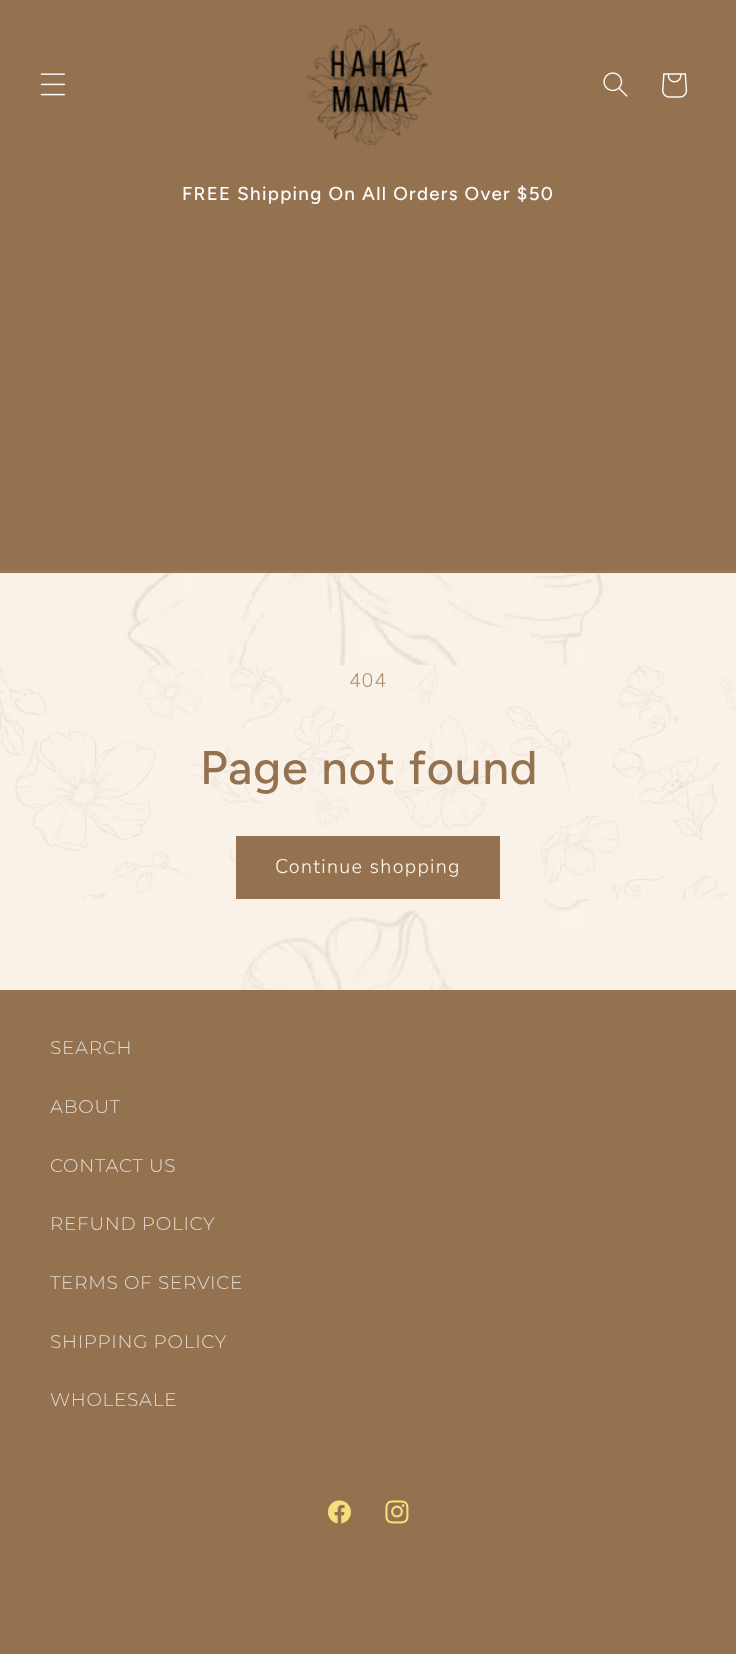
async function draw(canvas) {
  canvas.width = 736
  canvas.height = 1654
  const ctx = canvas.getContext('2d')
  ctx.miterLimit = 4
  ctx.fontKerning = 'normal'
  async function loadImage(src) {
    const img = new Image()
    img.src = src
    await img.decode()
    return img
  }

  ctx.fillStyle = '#fff'
  ctx.fillRect(0, 0, 736, 1654)
  ctx.drawImage(await loadImage('image0.png'), 0, 573, 736, 417)
  ctx.fillStyle = '#947250'
  ctx.fillRect(0, 0, 736, 573)
  ctx.drawImage(await loadImage('image1.png'), 40, 73, 26, 23)
  ctx.drawImage(await loadImage('image2.png'), 306, 24, 126, 122)
  ctx.drawImage(await loadImage('image3.png'), 603, 72, 25, 25)
  ctx.drawImage(await loadImage('image4.png'), 662, 73, 26, 25)
  ctx.fillStyle = '#9c7d5e'
  ctx.fillRect(0, 571, 736, 1)
  ctx.letterSpacing = '1.3px'
  ctx.font = '500 18.75px Figtree'
  ctx.fillStyle = '#fcfcfc'
  ctx.fillText('FREE Shipping On All Orders Over $50', 182, 200)
  ctx.drawImage(await loadImage('image5.png'), 0, 665, 736, 234)
  ctx.letterSpacing = '0.75px'
  ctx.font = '300 19.75px Nunito'
  ctx.fillStyle = '#ae9276'
  ctx.fillText('404', 349, 687)
  ctx.letterSpacing = '1px'
  ctx.font = '500 47px Figtree'
  ctx.fillStyle = '#947250'
  ctx.fillText('Page not found', 200, 784)
  ctx.fillRect(236, 836, 264, 63)
  ctx.letterSpacing = '1.3px'
  ctx.font = '300 19.75px Nunito'
  ctx.fillStyle = '#fdf7e9'
  ctx.fillText('Continue shopping', 275, 873)
  ctx.fillStyle = '#947250'
  ctx.fillRect(0, 990, 736, 664)
  ctx.letterSpacing = '0.75px'
  ctx.font = '300 18.4px Montserrat'
  ctx.fillStyle = '#e2dad1'
  ctx.fillText('SEARCH', 50, 1054)
  ctx.fillText('ABOUT', 50, 1113)
  ctx.fillText('CONTACT US', 50, 1172)
  ctx.fillText('REFUND POLICY', 50, 1230)
  ctx.fillText('TERMS OF SERVICE', 50, 1289)
  ctx.fillText('SHIPPING POLICY', 50, 1348)
  ctx.fillText('WHOLESALE', 50, 1406)
  ctx.drawImage(await loadImage('image6.png'), 327, 1500, 24, 24)
  ctx.drawImage(await loadImage('image7.png'), 385, 1500, 24, 24)
}

draw(document.querySelector('canvas'))
